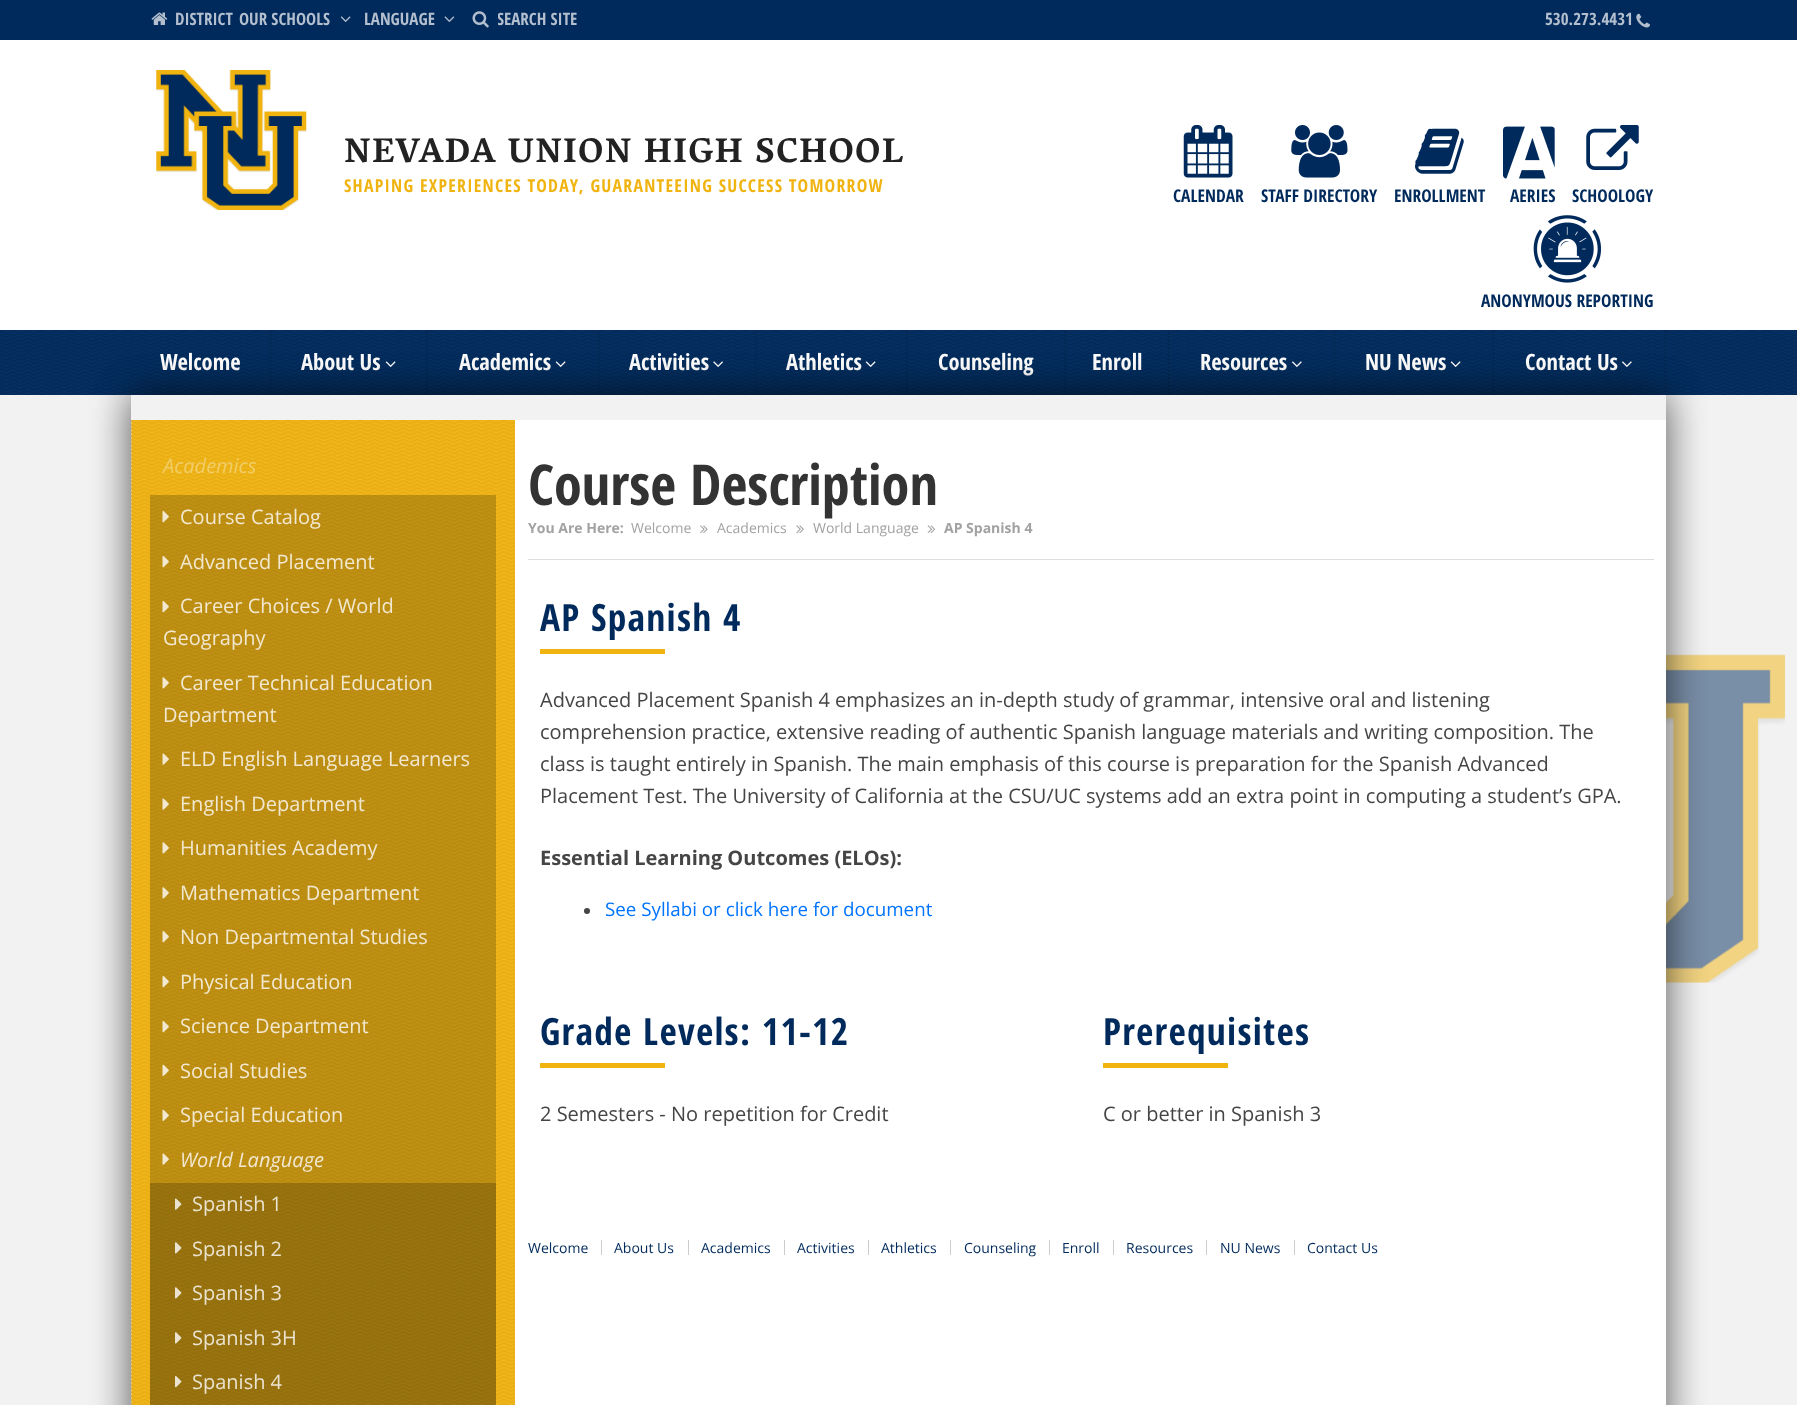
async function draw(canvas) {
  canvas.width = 1797
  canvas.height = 1405
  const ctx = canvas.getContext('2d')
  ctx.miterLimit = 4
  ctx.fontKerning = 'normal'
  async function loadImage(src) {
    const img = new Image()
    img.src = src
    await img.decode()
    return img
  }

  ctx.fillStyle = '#fff'
  ctx.fillRect(0, 0, 1797, 1405)
  ctx.fillStyle = '#002a5c'
  ctx.fillRect(0, 0, 1797, 40)
  ctx.drawImage(await loadImage('image0.png'), 151, 12, 17, 13)
  ctx.font = 'bold 17px Open Sans Condensed'
  ctx.fillStyle = '#b3bfce'
  ctx.fillText('DISTRICT', 175, 25)
  ctx.fillText('OUR SCHOOLS', 239, 25)
  ctx.drawImage(await loadImage('image1.png'), 340, 16, 11, 6)
  ctx.fillText('LANGUAGE', 364, 25)
  ctx.drawImage(await loadImage('image2.png'), 444, 16, 11, 6)
  ctx.drawImage(await loadImage('image3.png'), 472, 11, 17, 17)
  ctx.save()
  ctx.beginPath()
  ctx.rect(498, 8, 173, 22)
  ctx.clip()
  ctx.fillText('SEARCH SITE', 497, 25)
  ctx.restore()
  ctx.fillText('530.273.4431', 1545, 25)
  ctx.drawImage(await loadImage('image4.png'), 1636, 13, 14, 15)
  ctx.drawImage(await loadImage('image5.png'), 156, 70, 151, 140)
  ctx.letterSpacing = '1.25px'
  ctx.font = 'bold 34.75px Vesper Libre'
  ctx.fillStyle = '#222'
  ctx.fillText('NEVADA UNION HIGH SCHOOL', 344, 162)
  ctx.font = 'bold 17.8px Open Sans Condensed'
  ctx.fillStyle = '#f0b310'
  ctx.fillText('SHAPING EXPERIENCES TODAY, GUARANTEEING SUCCESS TOMORROW', 344, 192)
  ctx.drawImage(await loadImage('image6.png'), 1183, 125, 50, 53)
  ctx.letterSpacing = '0px'
  ctx.font = 'bold 17.5px Open Sans Condensed'
  ctx.fillStyle = '#002a5c'
  ctx.fillText('CALENDAR', 1173, 202)
  ctx.drawImage(await loadImage('image7.png'), 1291, 125, 57, 53)
  ctx.fillText('STAFF DIRECTORY', 1261, 202)
  ctx.drawImage(await loadImage('image8.png'), 1415, 128, 49, 46)
  ctx.fillText('ENROLLMENT', 1394, 202)
  ctx.drawImage(await loadImage('image9.png'), 1503, 126, 52, 53)
  ctx.fillText('AERIES', 1510, 202)
  ctx.drawImage(await loadImage('image10.png'), 1586, 125, 53, 45)
  ctx.fillText('SCHOOLOGY', 1572, 202)
  ctx.drawImage(await loadImage('image11.png'), 1533, 215, 68, 68)
  ctx.fillText('ANONYMOUS REPORTING', 1481, 307)
  ctx.drawImage(await loadImage('image12.png'), 0, 330, 1797, 65)
  ctx.fillStyle = '#0000001a'
  ctx.fillRect(270, 330, 1, 65)
  ctx.font = 'bold 22.5px Open Sans Condensed'
  ctx.fillStyle = '#fff'
  ctx.fillText('Welcome', 160, 370)
  ctx.fillStyle = '#0000001a'
  ctx.fillRect(426, 330, 1, 65)
  ctx.fillStyle = '#fff'
  ctx.fillText('About Us', 301, 370)
  ctx.drawImage(await loadImage('image13.png'), 385, 361, 11, 6)
  ctx.fillStyle = '#0000001a'
  ctx.fillRect(598, 330, 1, 65)
  ctx.fillStyle = '#fff'
  ctx.fillText('Academics', 459, 370)
  ctx.drawImage(await loadImage('image14.png'), 555, 361, 11, 6)
  ctx.fillStyle = '#0000001a'
  ctx.fillRect(755, 330, 1, 65)
  ctx.fillStyle = '#fff'
  ctx.fillText('Activities', 629, 370)
  ctx.drawImage(await loadImage('image15.png'), 713, 361, 10, 6)
  ctx.fillStyle = '#0000001a'
  ctx.fillRect(906, 330, 1, 65)
  ctx.fillStyle = '#fff'
  ctx.fillText('Athletics', 786, 370)
  ctx.drawImage(await loadImage('image16.png'), 865, 361, 11, 6)
  ctx.fillStyle = '#0000001a'
  ctx.fillRect(1065, 330, 1, 65)
  ctx.fillStyle = '#fff'
  ctx.fillText('Counseling', 938, 370)
  ctx.fillStyle = '#0000001a'
  ctx.fillRect(1168, 330, 1, 65)
  ctx.fillStyle = '#fff'
  ctx.fillText('Enroll', 1092, 370)
  ctx.fillStyle = '#0000001a'
  ctx.fillRect(1334, 330, 1, 65)
  ctx.fillStyle = '#fff'
  ctx.fillText('Resources', 1200, 370)
  ctx.drawImage(await loadImage('image17.png'), 1292, 361, 10, 6)
  ctx.fillStyle = '#0000001a'
  ctx.fillRect(1493, 330, 1, 65)
  ctx.fillStyle = '#fff'
  ctx.fillText('NU News', 1365, 370)
  ctx.drawImage(await loadImage('image18.png'), 1450, 361, 11, 6)
  ctx.fillStyle = '#0000001a'
  ctx.fillRect(1665, 330, 1, 65)
  ctx.fillStyle = '#fff'
  ctx.fillText('Contact Us', 1525, 370)
  ctx.drawImage(await loadImage('image19.png'), 1622, 361, 10, 6)
  ctx.fillStyle = '#f2f2f2'
  ctx.fillRect(0, 395, 1797, 1010)
  ctx.drawImage(await loadImage('image20.png'), 1666, 654, 120, 329)
  ctx.save()
  ctx.beginPath()
  ctx.moveTo(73, 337)
  ctx.lineTo(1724, 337)
  ctx.lineTo(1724, 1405)
  ctx.lineTo(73, 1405)
  ctx.closePath()
  ctx.moveTo(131, 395)
  ctx.lineTo(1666, 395)
  ctx.lineTo(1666, 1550)
  ctx.lineTo(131, 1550)
  ctx.closePath()
  ctx.clip('evenodd')
  ctx.fillStyle = '#0000004d'
  ctx.filter = 'blur(19px)'
  ctx.beginPath()
  ctx.rect(131, 395, 1535, 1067)
  ctx.fill()
  ctx.filter = 'none'
  ctx.fillStyle = '#00000066'
  ctx.filter = 'blur(19px)'
  ctx.beginPath()
  ctx.rect(131, 395, 1535, 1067)
  ctx.fill()
  ctx.filter = 'none'
  ctx.restore()
  ctx.drawImage(await loadImage('image21.png'), 131, 420, 384, 985)
  ctx.font = 'italic 20px Open Sans'
  ctx.fillStyle = '#f2cd68'
  ctx.fillText('Academics', 163, 473)
  ctx.fillStyle = '#00000033'
  ctx.fillRect(150, 495, 346, 910)
  ctx.drawImage(await loadImage('image22.png'), 162, 511, 7, 12)
  ctx.font = '20px Open Sans'
  ctx.fillStyle = '#f2e8d0'
  ctx.fillText('Course Catalog', 180, 524)
  ctx.drawImage(await loadImage('image23.png'), 162, 556, 7, 12)
  ctx.fillText('Advanced Placement', 180, 569)
  ctx.drawImage(await loadImage('image24.png'), 162, 601, 7, 12)
  ctx.fillText('Career Choices / World', 180, 613)
  ctx.fillText('Geography', 163, 645)
  ctx.drawImage(await loadImage('image25.png'), 162, 677, 7, 12)
  ctx.fillText('Career Technical Education', 180, 690)
  ctx.fillText('Department', 163, 722)
  ctx.drawImage(await loadImage('image26.png'), 162, 753, 7, 12)
  ctx.fillText('ELD English Language Learners', 180, 766)
  ctx.drawImage(await loadImage('image27.png'), 162, 798, 7, 12)
  ctx.fillText('English Department', 180, 811)
  ctx.drawImage(await loadImage('image28.png'), 162, 842, 7, 12)
  ctx.fillText('Humanities Academy', 180, 855)
  ctx.drawImage(await loadImage('image29.png'), 162, 887, 7, 12)
  ctx.fillText('Mathematics Department', 180, 900)
  ctx.drawImage(await loadImage('image22.png'), 162, 931, 7, 12)
  ctx.fillText('Non Departmental Studies', 180, 944)
  ctx.drawImage(await loadImage('image23.png'), 162, 976, 7, 12)
  ctx.fillText('Physical Education', 180, 989)
  ctx.drawImage(await loadImage('image24.png'), 162, 1021, 7, 12)
  ctx.fillText('Science Department', 180, 1033)
  ctx.drawImage(await loadImage('image30.png'), 162, 1064, 7, 12)
  ctx.fillText('Social Studies', 180, 1078)
  ctx.drawImage(await loadImage('image31.png'), 162, 1109, 7, 12)
  ctx.fillText('Special Education', 180, 1122)
  ctx.drawImage(await loadImage('image32.png'), 162, 1153, 7, 12)
  ctx.font = 'italic 20px Open Sans'
  ctx.fillText('World Language', 180, 1167)
  ctx.fillStyle = '#00000033'
  ctx.fillRect(150, 1183, 346, 222)
  ctx.drawImage(await loadImage('image33.png'), 175, 1198, 7, 12)
  ctx.font = '20px Open Sans'
  ctx.fillStyle = '#eae3cf'
  ctx.fillText('Spanish 1', 192, 1211)
  ctx.drawImage(await loadImage('image34.png'), 175, 1242, 7, 12)
  ctx.fillText('Spanish 2', 192, 1256)
  ctx.drawImage(await loadImage('image35.png'), 175, 1287, 7, 12)
  ctx.fillText('Spanish 3', 192, 1300)
  ctx.drawImage(await loadImage('image36.png'), 175, 1332, 7, 12)
  ctx.fillText('Spanish 3H', 192, 1345)
  ctx.drawImage(await loadImage('image37.png'), 175, 1376, 7, 12)
  ctx.fillText('Spanish 4', 192, 1389)
  ctx.fillStyle = '#fff'
  ctx.fillRect(515, 420, 1151, 985)
  ctx.font = 'bold 56.25px Open Sans Condensed'
  ctx.fillStyle = '#333'
  ctx.fillText('Course Description', 528, 505)
  ctx.font = 'bold 14px Open Sans'
  ctx.fillStyle = '#a2a2a2'
  ctx.fillText('You Are Here:', 528, 533)
  ctx.font = '14px Open Sans'
  ctx.fillText('Welcome', 631, 533)
  ctx.drawImage(await loadImage('image38.png'), 700, 525, 8, 9)
  ctx.fillText('Academics', 717, 533)
  ctx.drawImage(await loadImage('image39.png'), 796, 525, 8, 8)
  ctx.fillText('World Language', 813, 533)
  ctx.drawImage(await loadImage('image40.png'), 927, 525, 9, 9)
  ctx.font = 'bold 14px Open Sans'
  ctx.fillText('AP Spanish 4', 944, 533)
  ctx.fillStyle = '#ddd'
  ctx.fillRect(528, 559, 1126, 1)
  ctx.letterSpacing = '1.25px'
  ctx.font = 'bold 37.5px Open Sans Condensed'
  ctx.fillStyle = '#002a5c'
  ctx.fillText('AP Spanish 4', 540, 631)
  ctx.fillStyle = '#f0b310'
  ctx.fillRect(540, 649, 125, 5)
  ctx.letterSpacing = '0px'
  ctx.font = '20px Open Sans'
  ctx.fillStyle = '#454545'
  ctx.fillText('Advanced Placement Spanish 4 emphasizes an in-depth study of grammar, intensive oral and listening', 540, 707)
  ctx.fillText('comprehension practice, extensive reading of authentic Spanish language materials and writing composition. The', 540, 739)
  ctx.fillText('class is taught entirely in Spanish. The main emphasis of this course is preparation for the Spanish Advanced', 540, 771)
  ctx.fillText('Placement Test. The University of California at the CSU/UC systems add an extra point in computing a student’s GPA.', 540, 803)
  ctx.font = 'bold 20px Open Sans'
  ctx.fillText('Essential Learning Outcomes (ELOs):', 540, 865)
  ctx.beginPath()
  ctx.arc(587, 911, 3, 0, 2 * Math.PI)
  ctx.fill()
  ctx.font = '18.75px Open Sans'
  ctx.fillStyle = '#0074ff'
  ctx.fillText('See Syllabi or click here for document', 605, 916)
  ctx.letterSpacing = '1.25px'
  ctx.font = 'bold 37.5px Open Sans Condensed'
  ctx.fillStyle = '#002a5c'
  ctx.fillText('Grade Levels: 11-12', 540, 1045)
  ctx.fillStyle = '#f0b310'
  ctx.fillRect(540, 1063, 125, 5)
  ctx.letterSpacing = '0px'
  ctx.font = '20px Open Sans'
  ctx.fillStyle = '#454545'
  ctx.fillText('2 Semesters - No repetition for Credit', 540, 1121)
  ctx.letterSpacing = '1.25px'
  ctx.font = 'bold 37.5px Open Sans Condensed'
  ctx.fillStyle = '#002a5c'
  ctx.fillText('Prerequisites', 1103, 1045)
  ctx.fillStyle = '#f0b310'
  ctx.fillRect(1103, 1063, 125, 5)
  ctx.letterSpacing = '0px'
  ctx.font = '20px Open Sans'
  ctx.fillStyle = '#454545'
  ctx.fillText('C or better in Spanish 3', 1103, 1121)
  ctx.font = '14px Open Sans'
  ctx.fillStyle = '#002a5c'
  ctx.fillText('Welcome', 528, 1253)
  ctx.fillStyle = '#ccc'
  ctx.fillRect(601, 1240, 1, 15)
  ctx.fillStyle = '#002a5c'
  ctx.fillText('About Us', 614, 1253)
  ctx.fillStyle = '#ccc'
  ctx.fillRect(688, 1240, 1, 15)
  ctx.fillStyle = '#002a5c'
  ctx.fillText('Academics', 701, 1253)
  ctx.fillStyle = '#ccc'
  ctx.fillRect(784, 1240, 1, 15)
  ctx.fillStyle = '#002a5c'
  ctx.fillText('Activities', 797, 1253)
  ctx.fillStyle = '#ccc'
  ctx.fillRect(868, 1240, 1, 15)
  ctx.fillStyle = '#002a5c'
  ctx.fillText('Athletics', 881, 1253)
  ctx.fillStyle = '#ccc'
  ctx.fillRect(950, 1240, 1, 15)
  ctx.fillStyle = '#002a5c'
  ctx.fillText('Counseling', 964, 1253)
  ctx.fillStyle = '#ccc'
  ctx.fillRect(1049, 1240, 1, 15)
  ctx.fillStyle = '#002a5c'
  ctx.fillText('Enroll', 1062, 1253)
  ctx.fillStyle = '#ccc'
  ctx.fillRect(1113, 1240, 1, 15)
  ctx.fillStyle = '#002a5c'
  ctx.fillText('Resources', 1126, 1253)
  ctx.fillStyle = '#ccc'
  ctx.fillRect(1206, 1240, 1, 15)
  ctx.fillStyle = '#002a5c'
  ctx.fillText('NU News', 1220, 1253)
  ctx.fillStyle = '#ccc'
  ctx.fillRect(1294, 1240, 1, 15)
  ctx.fillStyle = '#002a5c'
  ctx.fillText('Contact Us', 1307, 1253)
}

draw(document.querySelector('canvas'))
